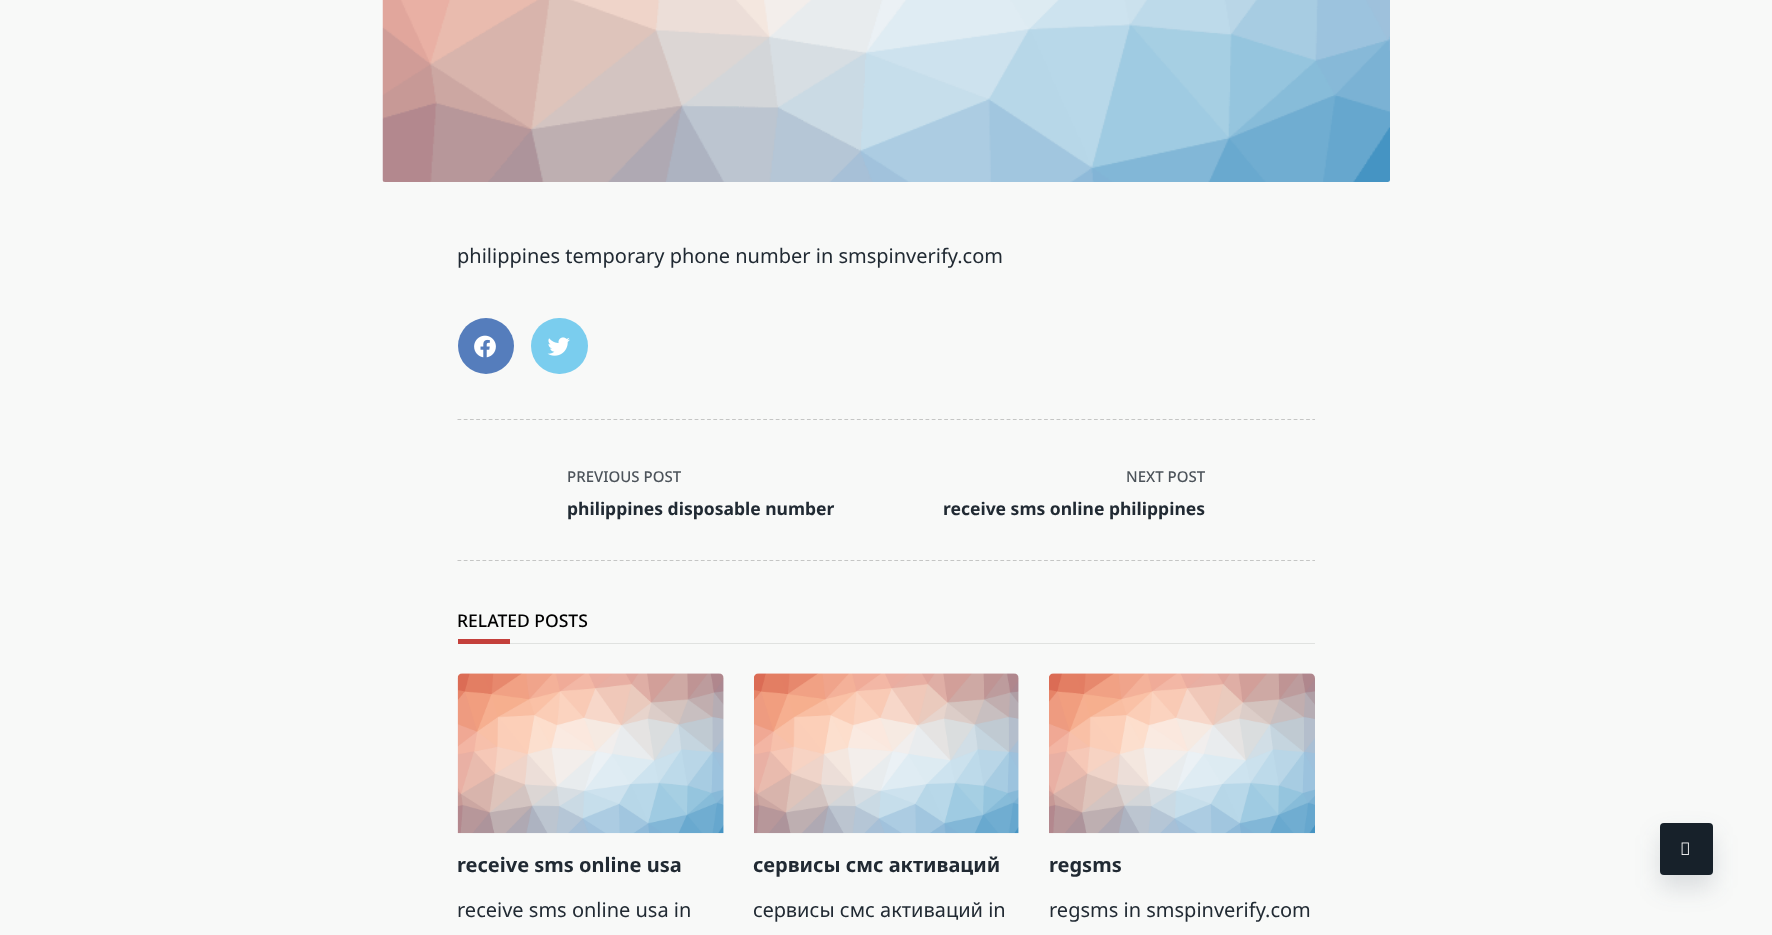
async function draw(canvas) {
  canvas.width = 1772
  canvas.height = 935
  const ctx = canvas.getContext('2d')
  ctx.miterLimit = 4
  ctx.fontKerning = 'normal'
  async function loadImage(src) {
    const img = new Image()
    img.src = src
    await img.decode()
    return img
  }

  ctx.fillStyle = '#f8f9f8'
  ctx.fillRect(0, 0, 1772, 935)
  ctx.drawImage(await loadImage('image0.png'), 382, 0, 1008, 182)
  ctx.font = '20px Noto Sans'
  ctx.fillStyle = '#212a33'
  ctx.fillText('philippines temporary phone number in smspinverify.com', 457, 263)
  ctx.fillStyle = '#557dbc'
  ctx.beginPath()
  ctx.arc(486, 346, 28, 0, 2 * Math.PI)
  ctx.fill()
  ctx.drawImage(await loadImage('image1.png'), 474, 335, 22, 23)
  ctx.fillStyle = '#7acdee'
  ctx.beginPath()
  ctx.roundRect(531, 318, 57, 56, 28)
  ctx.fill()
  ctx.drawImage(await loadImage('image2.png'), 547, 337, 23, 19)
  ctx.beginPath()
  ctx.moveTo(457.5, 419.5)
  ctx.lineTo(1315, 419.5)
  ctx.strokeStyle = '#c5c6c5'
  ctx.lineWidth = 1.2
  ctx.setLineDash([3.75, 2.49])
  ctx.stroke()
  ctx.beginPath()
  ctx.moveTo(457.5, 560.5)
  ctx.lineTo(1315, 560.5)
  ctx.stroke()
  ctx.font = '500 15px Noto Sans'
  ctx.fillStyle = '#4c535a'
  ctx.fillText('PREVIOUS POST', 567, 482)
  ctx.font = 'bold 17.5px Noto Sans'
  ctx.fillStyle = '#212a33'
  ctx.fillText('philippines disposable number', 567, 515)
  ctx.font = '500 15px Noto Sans'
  ctx.fillStyle = '#4c535a'
  ctx.fillText('NEXT POST', 1126, 482)
  ctx.font = 'bold 17.5px Noto Sans'
  ctx.fillStyle = '#212a33'
  ctx.fillText('receive sms online philippines', 943, 515)
  ctx.fillStyle = '#e0e2e0'
  ctx.fillRect(510, 643, 805, 1)
  ctx.font = '500 17.5px Noto Sans'
  ctx.fillStyle = '#000'
  ctx.fillText('RELATED POSTS', 457, 627)
  ctx.fillStyle = '#c4403b'
  ctx.fillRect(458, 639, 52, 5)
  ctx.drawImage(await loadImage('image3.png'), 457, 673, 267, 161)
  ctx.font = 'bold 20px Noto Sans'
  ctx.fillStyle = '#212a33'
  ctx.fillText('receive sms online usa', 457, 872)
  ctx.font = '20px Noto Sans'
  ctx.fillText('receive sms online usa in', 457, 917)
  ctx.drawImage(await loadImage('image4.png'), 754, 673, 265, 161)
  ctx.font = 'bold 20px Noto Sans'
  ctx.fillText('сервисы смс активаций', 753, 872)
  ctx.font = '20px Noto Sans'
  ctx.fillText('сервисы смс активаций in', 753, 917)
  ctx.drawImage(await loadImage('image5.png'), 1049, 673, 266, 161)
  ctx.font = 'bold 20px Noto Sans'
  ctx.fillText('regsms', 1049, 872)
  ctx.font = '20px Noto Sans'
  ctx.fillText('regsms in smspinverify.com', 1049, 917)
  ctx.fillStyle = '#2c3e5026'
  ctx.filter = 'blur(12.5px)'
  ctx.beginPath()
  ctx.roundRect(1660, 835, 53, 53, 4)
  ctx.fill()
  ctx.filter = 'none'
  ctx.fillStyle = '#17212a'
  ctx.beginPath()
  ctx.roundRect(1660, 823, 53, 52, 4)
  ctx.fill()
  ctx.drawImage(await loadImage('image6.png'), 1681, 842, 8, 13)
}

draw(document.querySelector('canvas'))
